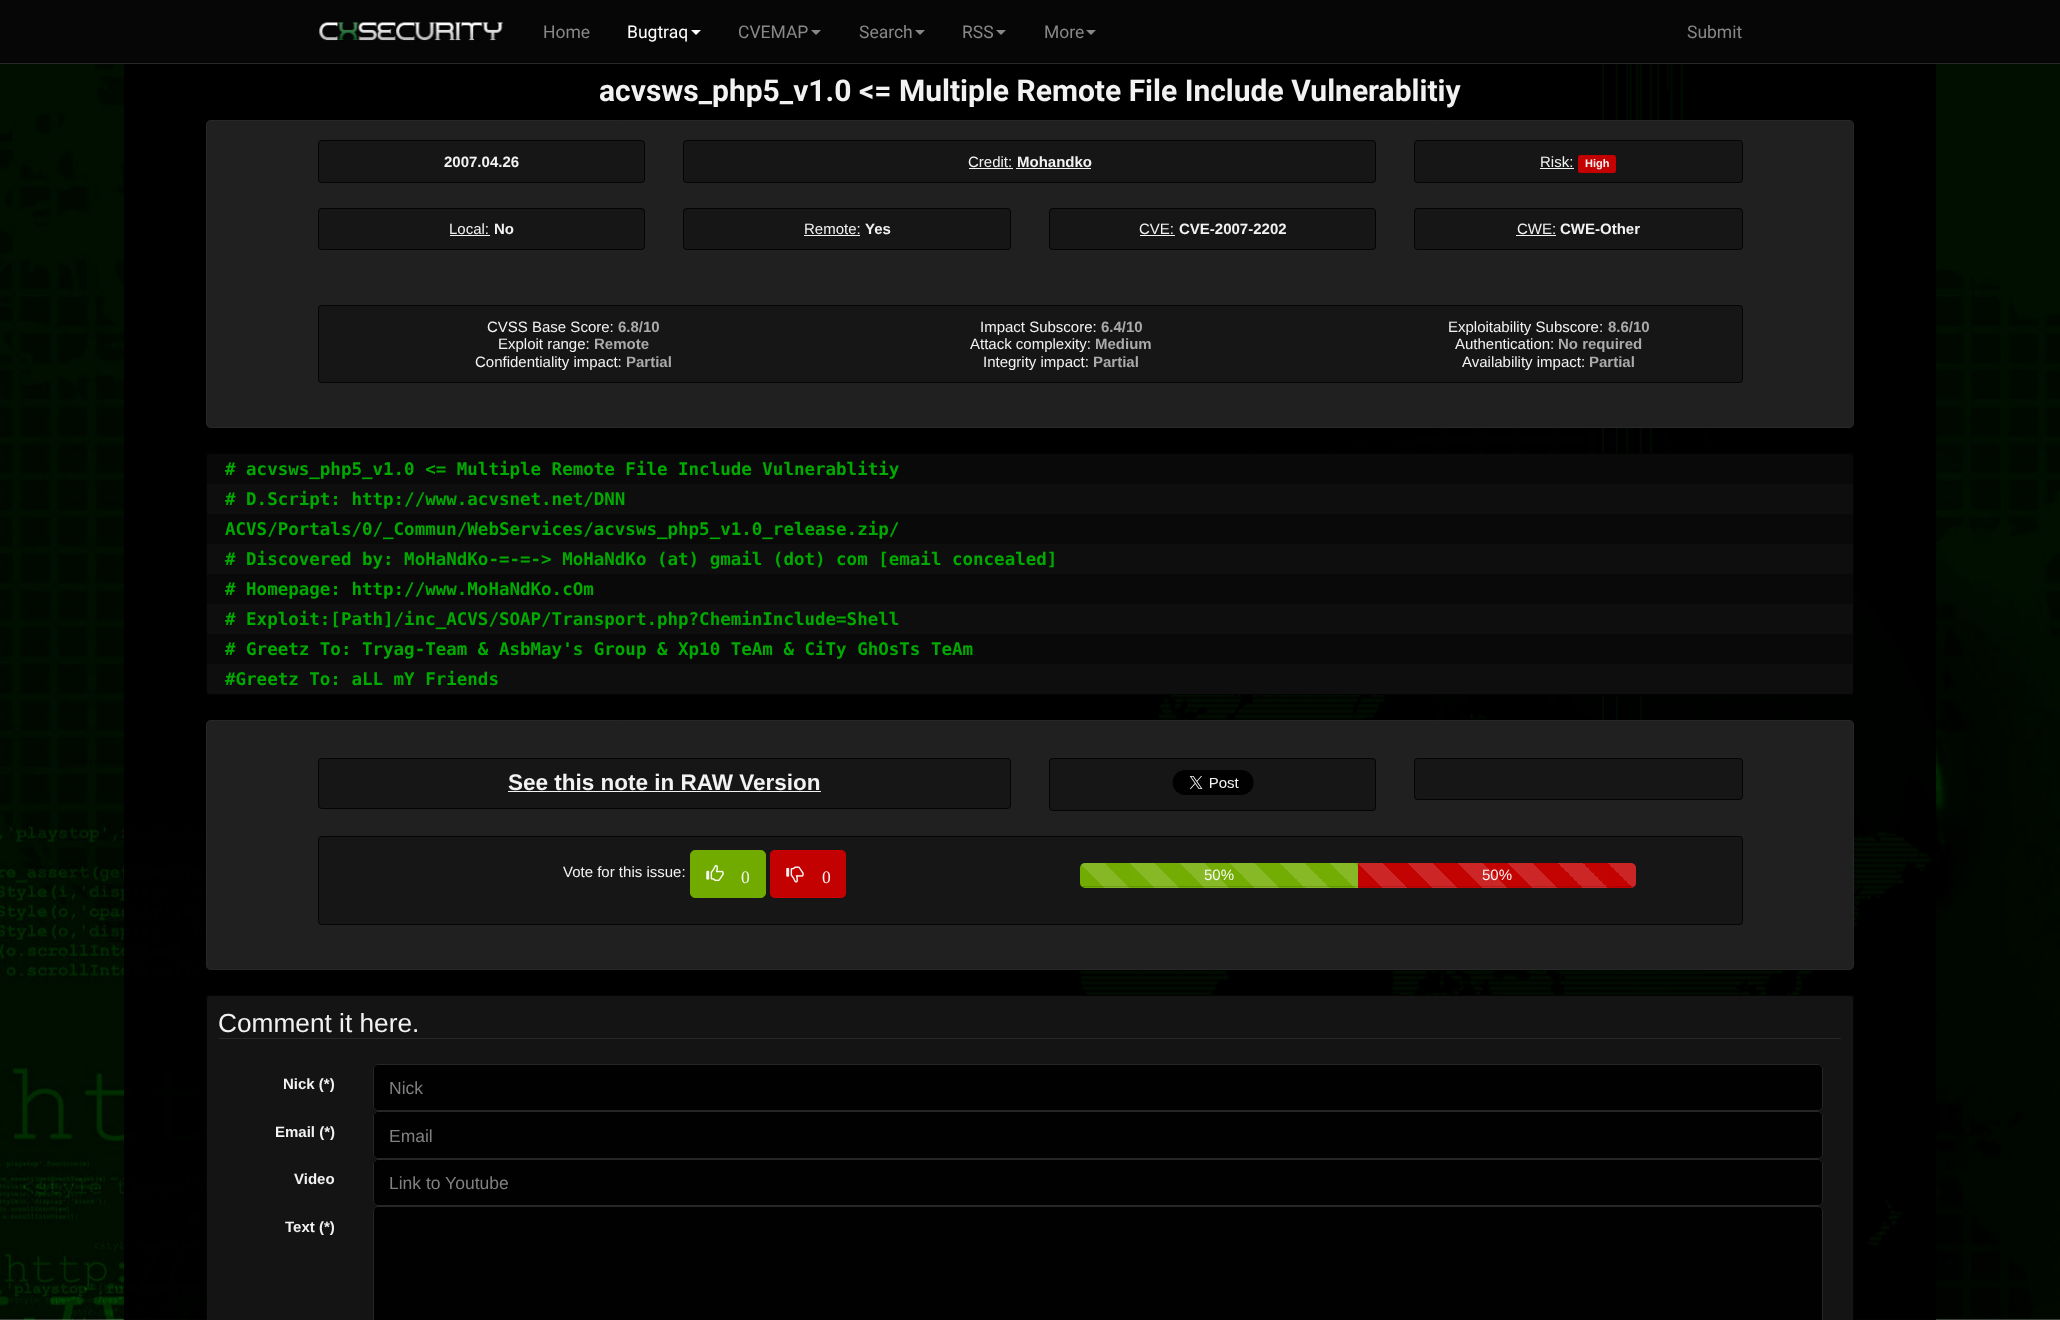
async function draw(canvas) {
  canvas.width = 2060
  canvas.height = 1320
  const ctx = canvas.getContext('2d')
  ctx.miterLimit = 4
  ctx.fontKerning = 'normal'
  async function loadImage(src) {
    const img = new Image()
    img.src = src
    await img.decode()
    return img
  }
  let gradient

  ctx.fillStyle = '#fff'
  ctx.fillRect(0, 0, 2060, 1320)
  ctx.drawImage(await loadImage('image0.png'), 0, 64, 2060, 1256)
  ctx.fillStyle = '#060606'
  ctx.fillRect(0, 0, 2060, 63)
  ctx.fillStyle = '#282828'
  ctx.fillRect(0, 63, 2060, 1)
  ctx.drawImage(await loadImage('image1.png'), 319, 22, 185, 19)
  ctx.font = '17.5px Roboto'
  ctx.fillStyle = '#888'
  ctx.fillText('Home', 543, 38)
  ctx.fillStyle = '#fff'
  ctx.fillText('Bugtraq', 627, 38)
  ctx.beginPath()
  ctx.moveTo(691, 30)
  ctx.lineTo(701, 30)
  ctx.lineTo(696, 35)
  ctx.closePath()
  ctx.fill()
  ctx.fillStyle = '#888'
  ctx.fillText('CVEMAP', 738, 38)
  ctx.beginPath()
  ctx.moveTo(811, 30)
  ctx.lineTo(821, 30)
  ctx.lineTo(816, 35)
  ctx.closePath()
  ctx.fill()
  ctx.fillText('Search', 859, 38)
  ctx.beginPath()
  ctx.moveTo(915, 30)
  ctx.lineTo(925, 30)
  ctx.lineTo(920, 35)
  ctx.closePath()
  ctx.fill()
  ctx.fillText('RSS', 962, 38)
  ctx.beginPath()
  ctx.moveTo(996, 30)
  ctx.lineTo(1006, 30)
  ctx.lineTo(1001, 35)
  ctx.closePath()
  ctx.fill()
  ctx.fillText('More', 1044, 38)
  ctx.beginPath()
  ctx.moveTo(1086, 30)
  ctx.lineTo(1096, 30)
  ctx.lineTo(1091, 35)
  ctx.closePath()
  ctx.fill()
  ctx.fillText('Submit', 1687, 38)
  ctx.fillStyle = '#000000f2'
  ctx.fillRect(124, 64, 82, 1256)
  ctx.fillRect(206, 64, 1648, 1256)
  ctx.font = 'bold 30px Roboto'
  ctx.fillStyle = '#f2f2f2'
  ctx.fillText('acvsws_php5_v1.0 <= Multiple Remote File Include Vulnerablitiy', 599, 101)
  ctx.fillStyle = '#222222f2'
  ctx.beginPath()
  ctx.roundRect(206, 120, 1648, 308, 5)
  ctx.fill()
  ctx.beginPath()
  ctx.roundRect(206.5, 120.5, 1647, 307, 4.5)
  ctx.strokeStyle = '#282828f2'
  ctx.stroke()
  ctx.fillStyle = '#161616'
  ctx.beginPath()
  ctx.roundRect(318, 140, 327, 43, 4)
  ctx.fill()
  ctx.beginPath()
  ctx.roundRect(318.5, 140.5, 326, 42, 3.5)
  ctx.strokeStyle = '#030303f2'
  ctx.stroke()
  ctx.font = 'bold 15px Liberation Sans'
  ctx.fillStyle = '#f2f2f2'
  ctx.fillText('2007.04.26', 444, 167)
  ctx.fillStyle = '#161616'
  ctx.beginPath()
  ctx.roundRect(683, 140, 693, 43, 4)
  ctx.fill()
  ctx.beginPath()
  ctx.roundRect(683.5, 140.5, 692, 42, 3.5)
  ctx.stroke()
  ctx.font = '15px Liberation Sans'
  ctx.fillStyle = '#f2f2f2'
  ctx.fillText('Credit:', 968, 167)
  ctx.fillStyle = '#f2f3f2'
  ctx.fillRect(969, 168, 44, 1)
  ctx.font = 'bold 15px Liberation Sans'
  ctx.fillStyle = '#f2f2f2'
  ctx.fillText('Mohandko', 1017, 167)
  ctx.fillStyle = '#f2f3f2'
  ctx.fillRect(1016, 168, 75, 1)
  ctx.fillStyle = '#161616'
  ctx.beginPath()
  ctx.roundRect(1414, 140, 329, 43, 4)
  ctx.fill()
  ctx.beginPath()
  ctx.roundRect(1414.5, 140.5, 328, 42, 3.5)
  ctx.stroke()
  ctx.font = '15px Liberation Sans'
  ctx.fillStyle = '#f2f2f2'
  ctx.fillText('Risk:', 1540, 167)
  ctx.fillStyle = '#f2f3f2'
  ctx.fillRect(1540, 168, 34, 1)
  ctx.fillStyle = '#c30101'
  ctx.beginPath()
  ctx.roundRect(1578, 155, 38, 18, 2.5)
  ctx.fill()
  ctx.font = 'bold 11px Liberation Sans'
  ctx.fillStyle = '#fcf2f2'
  ctx.fillText('High', 1585, 167)
  ctx.fillStyle = '#161616'
  ctx.beginPath()
  ctx.roundRect(318, 208, 327, 42, 4)
  ctx.fill()
  ctx.beginPath()
  ctx.roundRect(318.5, 208.5, 326, 41, 3.5)
  ctx.stroke()
  ctx.font = '15px Liberation Sans'
  ctx.fillStyle = '#f2f2f2'
  ctx.fillText('Local:', 449, 234)
  ctx.fillStyle = '#f3f3f3'
  ctx.fillRect(450, 235, 40, 1)
  ctx.font = 'bold 15px Liberation Sans'
  ctx.fillStyle = '#f2f2f2'
  ctx.fillText('No', 494, 234)
  ctx.fillStyle = '#161616'
  ctx.beginPath()
  ctx.roundRect(683, 208, 328, 42, 4)
  ctx.fill()
  ctx.beginPath()
  ctx.roundRect(683.5, 208.5, 327, 41, 3.5)
  ctx.stroke()
  ctx.font = '15px Liberation Sans'
  ctx.fillStyle = '#f2f2f2'
  ctx.fillText('Remote:', 804, 234)
  ctx.fillStyle = '#f2f3f2'
  ctx.fillRect(804, 235, 56, 1)
  ctx.font = 'bold 15px Liberation Sans'
  ctx.fillStyle = '#f2f2f2'
  ctx.fillText('Yes', 865, 234)
  ctx.fillStyle = '#161616'
  ctx.beginPath()
  ctx.roundRect(1049, 208, 327, 42, 4)
  ctx.fill()
  ctx.beginPath()
  ctx.roundRect(1049.5, 208.5, 326, 41, 3.5)
  ctx.stroke()
  ctx.font = '15px Liberation Sans'
  ctx.fillStyle = '#f2f2f2'
  ctx.fillText('CVE:', 1139, 234)
  ctx.fillStyle = '#f2f3f2'
  ctx.fillRect(1140, 235, 35, 1)
  ctx.font = 'bold 15px Liberation Sans'
  ctx.fillStyle = '#f2f2f2'
  ctx.fillText('CVE-2007-2202', 1179, 234)
  ctx.fillStyle = '#161616'
  ctx.beginPath()
  ctx.roundRect(1414, 208, 329, 42, 4)
  ctx.fill()
  ctx.beginPath()
  ctx.roundRect(1414.5, 208.5, 328, 41, 3.5)
  ctx.stroke()
  ctx.font = '15px Liberation Sans'
  ctx.fillStyle = '#f2f2f2'
  ctx.fillText('CWE:', 1517, 234)
  ctx.fillStyle = '#f3f3f3'
  ctx.fillRect(1516, 235, 40, 1)
  ctx.font = 'bold 15px Liberation Sans'
  ctx.fillStyle = '#f2f2f2'
  ctx.fillText('CWE-Other', 1560, 234)
  ctx.fillStyle = '#161616'
  ctx.beginPath()
  ctx.roundRect(318, 305, 1425, 78, 4)
  ctx.fill()
  ctx.beginPath()
  ctx.roundRect(318.5, 305.5, 1424, 77, 3.5)
  ctx.stroke()
  ctx.font = '15px Liberation Sans'
  ctx.fillStyle = '#f2f2f2'
  ctx.fillText('CVSS Base Score:', 487, 332)
  ctx.font = 'bold 15px Liberation Sans'
  ctx.fillStyle = '#aaa'
  ctx.fillText('6.8/10', 618, 332)
  ctx.font = '15px Liberation Sans'
  ctx.fillStyle = '#f2f2f2'
  ctx.fillText('Impact Subscore:', 980, 332)
  ctx.font = 'bold 15px Liberation Sans'
  ctx.fillStyle = '#aaa'
  ctx.fillText('6.4/10', 1101, 332)
  ctx.font = '15px Liberation Sans'
  ctx.fillStyle = '#f2f2f2'
  ctx.fillText('Exploitability Subscore:', 1448, 332)
  ctx.font = 'bold 15px Liberation Sans'
  ctx.fillStyle = '#aaa'
  ctx.fillText('8.6/10', 1608, 332)
  ctx.font = '15px Liberation Sans'
  ctx.fillStyle = '#f2f2f2'
  ctx.fillText('Exploit range:', 498, 349)
  ctx.font = 'bold 15px Liberation Sans'
  ctx.fillStyle = '#aaa'
  ctx.fillText('Remote', 594, 349)
  ctx.font = '15px Liberation Sans'
  ctx.fillStyle = '#f2f2f2'
  ctx.fillText('Attack complexity:', 970, 349)
  ctx.font = 'bold 15px Liberation Sans'
  ctx.fillStyle = '#aaa'
  ctx.fillText('Medium', 1095, 349)
  ctx.font = '15px Liberation Sans'
  ctx.fillStyle = '#f2f2f2'
  ctx.fillText('Authentication:', 1455, 349)
  ctx.font = 'bold 15px Liberation Sans'
  ctx.fillStyle = '#aaa'
  ctx.fillText('No required', 1558, 349)
  ctx.font = '15px Liberation Sans'
  ctx.fillStyle = '#f2f2f2'
  ctx.fillText('Confidentiality impact:', 475, 367)
  ctx.font = 'bold 15px Liberation Sans'
  ctx.fillStyle = '#aaa'
  ctx.fillText('Partial', 626, 367)
  ctx.font = '15px Liberation Sans'
  ctx.fillStyle = '#f2f2f2'
  ctx.fillText('Integrity impact:', 983, 367)
  ctx.font = 'bold 15px Liberation Sans'
  ctx.fillStyle = '#aaa'
  ctx.fillText('Partial', 1093, 367)
  ctx.font = '15px Liberation Sans'
  ctx.fillStyle = '#f2f2f2'
  ctx.fillText('Availability impact:', 1462, 367)
  ctx.font = 'bold 15px Liberation Sans'
  ctx.fillStyle = '#aaa'
  ctx.fillText('Partial', 1589, 367)
  ctx.drawImage(await loadImage('image2.png'), 206, 453, 1648, 242)
  ctx.beginPath()
  ctx.roundRect(206.5, 453.5, 1647, 241, 3.5)
  ctx.stroke()
  ctx.font = 'bold 17.5px DejaVu Sans Mono'
  ctx.fillStyle = '#0a0'
  ctx.fillText('# acvsws_php5_v1.0 <= Multiple Remote File Include Vulnerablitiy', 225, 475)
  ctx.fillText('# D.Script: http://www.acvsnet.net/DNN', 225, 505)
  ctx.fillText('ACVS/Portals/0/_Commun/WebServices/acvsws_php5_v1.0_release.zip/', 225, 535)
  ctx.fillText('# Discovered by: MoHaNdKo-=-=-> MoHaNdKo (at) gmail (dot) com [email concealed]', 225, 565)
  ctx.fillText('# Homepage: http://www.MoHaNdKo.cOm', 225, 595)
  ctx.fillText('# Exploit:[Path]/inc_ACVS/SOAP/Transport.php?CheminInclude=Shell', 225, 625)
  ctx.fillText('# Greetz To: Tryag-Team & AsbMay\'s Group & Xp10 TeAm & CiTy GhOsTs TeAm', 225, 655)
  ctx.fillText('#Greetz To: aLL mY Friends', 225, 685)
  ctx.fillStyle = '#222222f2'
  ctx.beginPath()
  ctx.roundRect(206, 720, 1648, 250, 5)
  ctx.fill()
  ctx.beginPath()
  ctx.roundRect(206.5, 720.5, 1647, 249, 4.5)
  ctx.strokeStyle = '#282828f2'
  ctx.stroke()
  ctx.fillStyle = '#161616'
  ctx.beginPath()
  ctx.roundRect(318, 758, 693, 51, 4)
  ctx.fill()
  ctx.beginPath()
  ctx.roundRect(318.5, 758.5, 692, 50, 3.5)
  ctx.strokeStyle = '#030303f2'
  ctx.stroke()
  ctx.font = 'bold 22.5px Liberation Sans'
  ctx.fillStyle = '#f2f2f2'
  ctx.fillText('See this note in RAW Version', 508, 790)
  ctx.fillStyle = '#f3f3f3'
  ctx.fillRect(508, 791, 313, 1)
  ctx.fillStyle = '#161616'
  ctx.beginPath()
  ctx.roundRect(1049, 758, 327, 53, 4)
  ctx.fill()
  ctx.beginPath()
  ctx.roundRect(1049.5, 758.5, 326, 52, 3.5)
  ctx.stroke()
  ctx.drawImage(await loadImage('image3.png'), 1172, 770, 82, 25)
  ctx.beginPath()
  ctx.roundRect(1414, 758, 329, 42, 4)
  ctx.fill()
  ctx.beginPath()
  ctx.roundRect(1414.5, 758.5, 328, 41, 3.5)
  ctx.stroke()
  ctx.beginPath()
  ctx.roundRect(318, 836, 1425, 89, 4)
  ctx.fill()
  ctx.beginPath()
  ctx.roundRect(318.5, 836.5, 1424, 88, 3.5)
  ctx.stroke()
  ctx.font = '15px Liberation Sans'
  ctx.fillStyle = '#f2f2f2'
  ctx.fillText('Vote for this issue:', 563, 877)
  ctx.fillStyle = '#71ab00'
  ctx.beginPath()
  ctx.roundRect(690.5, 850.5, 75, 47, 4.5)
  ctx.fill()
  ctx.strokeStyle = '#71ab00'
  ctx.stroke()
  ctx.drawImage(await loadImage('image4.png'), 706, 865, 18, 17)
  ctx.font = '17.5px Liberation Serif'
  ctx.fillStyle = '#f2f2f2'
  ctx.fillText('0', 741, 883)
  ctx.fillStyle = '#c30101'
  ctx.beginPath()
  ctx.roundRect(770, 850, 76, 48, 5)
  ctx.fill()
  ctx.beginPath()
  ctx.roundRect(770.5, 850.5, 75, 47, 4.5)
  ctx.strokeStyle = '#cc0000f2'
  ctx.stroke()
  ctx.drawImage(await loadImage('image5.png'), 786, 866, 18, 17)
  ctx.fillStyle = '#fcf2f2'
  ctx.fillText('0', 822, 883)
  ctx.fillStyle = '#212121'
  ctx.beginPath()
  ctx.roundRect(1080, 863, 556, 25, 5)
  ctx.fill()
  ctx.fillStyle = '#77b300f2'
  ctx.beginPath()
  ctx.roundRect(1080, 863, 278, 25, [5, 0, 0, 5])
  ctx.fill()
  gradient = ctx.createLinearGradient(1080, 913, 1130, 863)
  gradient.addColorStop(0.25, '#ffffff24')
  gradient.addColorStop(0.25, '#ffffff00')
  gradient.addColorStop(0.5, '#ffffff00')
  gradient.addColorStop(0.5, '#ffffff24')
  gradient.addColorStop(0.75, '#ffffff24')
  gradient.addColorStop(0.75, '#ffffff00')
  gradient.addColorStop(1, '#00000000')
  ctx.fillStyle = gradient
  ctx.beginPath()
  ctx.roundRect(1080, 863, 50, 25, [5, 0, 0, 5])
  ctx.fill()
  gradient = ctx.createLinearGradient(1130, 913, 1180, 863)
  gradient.addColorStop(0.25, '#87b826')
  gradient.addColorStop(0.25, '#73ac02')
  gradient.addColorStop(0.5, '#73ac02')
  gradient.addColorStop(0.5, '#87b826')
  gradient.addColorStop(0.75, '#87b826')
  gradient.addColorStop(0.75, '#73ac02')
  gradient.addColorStop(1, '#73ac02')
  ctx.fillStyle = gradient
  ctx.fillRect(1130, 863, 50, 25)
  gradient = ctx.createLinearGradient(1180, 913, 1230, 863)
  gradient.addColorStop(0.25, '#87b826')
  gradient.addColorStop(0.25, '#73ac02')
  gradient.addColorStop(0.5, '#73ac02')
  gradient.addColorStop(0.5, '#87b826')
  gradient.addColorStop(0.75, '#87b826')
  gradient.addColorStop(0.75, '#73ac02')
  gradient.addColorStop(1, '#73ac02')
  ctx.fillStyle = gradient
  ctx.fillRect(1180, 863, 50, 25)
  gradient = ctx.createLinearGradient(1230, 913, 1280, 863)
  gradient.addColorStop(0.25, '#87b826')
  gradient.addColorStop(0.25, '#73ac02')
  gradient.addColorStop(0.5, '#73ac02')
  gradient.addColorStop(0.5, '#87b826')
  gradient.addColorStop(0.75, '#87b826')
  gradient.addColorStop(0.75, '#73ac02')
  gradient.addColorStop(1, '#73ac02')
  ctx.fillStyle = gradient
  ctx.fillRect(1230, 863, 50, 25)
  gradient = ctx.createLinearGradient(1280, 913, 1330, 863)
  gradient.addColorStop(0.25, '#87b826')
  gradient.addColorStop(0.25, '#73ac02')
  gradient.addColorStop(0.5, '#73ac02')
  gradient.addColorStop(0.5, '#87b826')
  gradient.addColorStop(0.75, '#87b826')
  gradient.addColorStop(0.75, '#73ac02')
  gradient.addColorStop(1, '#73ac02')
  ctx.fillStyle = gradient
  ctx.fillRect(1280, 863, 50, 25)
  gradient = ctx.createLinearGradient(1330, 913, 1380, 863)
  gradient.addColorStop(0.25, '#87b826')
  gradient.addColorStop(0.25, '#73ac02')
  gradient.addColorStop(0.5, '#73ac02')
  gradient.addColorStop(0.5, '#87b826')
  gradient.addColorStop(0.75, '#87b826')
  gradient.addColorStop(0.75, '#73ac02')
  gradient.addColorStop(1, '#73ac02')
  ctx.fillStyle = gradient
  ctx.fillRect(1330, 863, 28, 25)
  ctx.fillStyle = '#00000024'
  ctx.fillRect(1080, 886, 278, 1)
  ctx.font = '15px Liberation Sans'
  ctx.fillStyle = '#f8fbf3'
  ctx.fillText('50%', 1204, 880)
  ctx.fillStyle = '#cc0000f2'
  ctx.beginPath()
  ctx.roundRect(1358, 863, 278, 25, [0, 5, 5, 0])
  ctx.fill()
  gradient = ctx.createLinearGradient(1358, 913, 1408, 863)
  gradient.addColorStop(0.25, '#cc2626')
  gradient.addColorStop(0.25, '#c30202')
  gradient.addColorStop(0.5, '#c30202')
  gradient.addColorStop(0.5, '#cc2626')
  gradient.addColorStop(0.75, '#cc2626')
  gradient.addColorStop(0.75, '#c30202')
  gradient.addColorStop(1, '#c30202')
  ctx.fillStyle = gradient
  ctx.fillRect(1358, 863, 50, 25)
  gradient = ctx.createLinearGradient(1408, 913, 1458, 863)
  gradient.addColorStop(0.25, '#cc2626')
  gradient.addColorStop(0.25, '#c30202')
  gradient.addColorStop(0.5, '#c30202')
  gradient.addColorStop(0.5, '#cc2626')
  gradient.addColorStop(0.75, '#cc2626')
  gradient.addColorStop(0.75, '#c30202')
  gradient.addColorStop(1, '#c30202')
  ctx.fillStyle = gradient
  ctx.fillRect(1408, 863, 50, 25)
  gradient = ctx.createLinearGradient(1458, 913, 1508, 863)
  gradient.addColorStop(0.25, '#cc2626')
  gradient.addColorStop(0.25, '#c30202')
  gradient.addColorStop(0.5, '#c30202')
  gradient.addColorStop(0.5, '#cc2626')
  gradient.addColorStop(0.75, '#cc2626')
  gradient.addColorStop(0.75, '#c30202')
  gradient.addColorStop(1, '#c30202')
  ctx.fillStyle = gradient
  ctx.fillRect(1458, 863, 50, 25)
  gradient = ctx.createLinearGradient(1508, 913, 1558, 863)
  gradient.addColorStop(0.25, '#cc2626')
  gradient.addColorStop(0.25, '#c30202')
  gradient.addColorStop(0.5, '#c30202')
  gradient.addColorStop(0.5, '#cc2626')
  gradient.addColorStop(0.75, '#cc2626')
  gradient.addColorStop(0.75, '#c30202')
  gradient.addColorStop(1, '#c30202')
  ctx.fillStyle = gradient
  ctx.fillRect(1508, 863, 50, 25)
  gradient = ctx.createLinearGradient(1558, 913, 1608, 863)
  gradient.addColorStop(0.25, '#cc2626')
  gradient.addColorStop(0.25, '#c30202')
  gradient.addColorStop(0.5, '#c30202')
  gradient.addColorStop(0.5, '#cc2626')
  gradient.addColorStop(0.75, '#cc2626')
  gradient.addColorStop(0.75, '#c30202')
  gradient.addColorStop(1, '#c30202')
  ctx.fillStyle = gradient
  ctx.fillRect(1558, 863, 50, 25)
  gradient = ctx.createLinearGradient(1608, 913, 1658, 863)
  gradient.addColorStop(0.25, '#ffffff24')
  gradient.addColorStop(0.25, '#ffffff00')
  gradient.addColorStop(0.5, '#ffffff00')
  gradient.addColorStop(0.5, '#ffffff24')
  gradient.addColorStop(0.75, '#ffffff24')
  gradient.addColorStop(0.75, '#ffffff00')
  gradient.addColorStop(1, '#00000000')
  ctx.fillStyle = gradient
  ctx.beginPath()
  ctx.roundRect(1608, 863, 28, 25, [0, 5, 5, 0])
  ctx.fill()
  ctx.fillStyle = '#00000024'
  ctx.fillRect(1358, 886, 278, 1)
  ctx.fillStyle = '#fcf2f2'
  ctx.fillText('50%', 1482, 880)
  ctx.fillStyle = '#151515f2'
  ctx.beginPath()
  ctx.roundRect(206, 995, 1648, 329, 4)
  ctx.fill()
  ctx.beginPath()
  ctx.roundRect(206.5, 995.5, 1647, 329, 3.5)
  ctx.strokeStyle = '#030303f2'
  ctx.stroke()
  ctx.fillStyle = '#272727'
  ctx.fillRect(219, 1038, 1622, 1)
  ctx.font = '26.25px Liberation Sans'
  ctx.fillStyle = '#f2f2f2'
  ctx.fillText('Comment it here.', 218, 1032)
  ctx.font = 'bold 15px Liberation Sans'
  ctx.fillText('Nick (*)', 283, 1089)
  ctx.fillStyle = '#010101'
  ctx.beginPath()
  ctx.roundRect(373, 1064, 1450, 47, 5)
  ctx.fill()
  ctx.beginPath()
  ctx.roundRect(373.5, 1064.5, 1449, 46, 4.5)
  ctx.strokeStyle = '#282828f2'
  ctx.stroke()
  ctx.font = '17.5px Liberation Sans'
  ctx.fillStyle = '#818181'
  ctx.fillText('Nick', 389, 1094)
  ctx.font = 'bold 15px Liberation Sans'
  ctx.fillStyle = '#f2f2f2'
  ctx.fillText('Email (*)', 275, 1137)
  ctx.fillStyle = '#010101'
  ctx.beginPath()
  ctx.roundRect(373, 1111, 1450, 48, 5)
  ctx.fill()
  ctx.beginPath()
  ctx.roundRect(373.5, 1111.5, 1449, 47, 4.5)
  ctx.stroke()
  ctx.font = '17.5px Liberation Sans'
  ctx.fillStyle = '#818181'
  ctx.fillText('Email', 389, 1142)
  ctx.font = 'bold 15px Liberation Sans'
  ctx.fillStyle = '#f2f2f2'
  ctx.fillText('Video', 294, 1184)
  ctx.fillStyle = '#010101'
  ctx.beginPath()
  ctx.roundRect(373, 1159, 1450, 47, 5)
  ctx.fill()
  ctx.beginPath()
  ctx.roundRect(373.5, 1159.5, 1449, 46, 4.5)
  ctx.stroke()
  ctx.font = '17.5px Liberation Sans'
  ctx.fillStyle = '#818181'
  ctx.fillText('Link to Youtube', 389, 1189)
  ctx.font = 'bold 15px Liberation Sans'
  ctx.fillStyle = '#f2f2f2'
  ctx.fillText('Text (*)', 285, 1232)
  ctx.fillStyle = '#010101'
  ctx.beginPath()
  ctx.roundRect(373, 1206, 1450, 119, 5)
  ctx.fill()
  ctx.beginPath()
  ctx.roundRect(373.5, 1206.5, 1449, 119, 4.5)
  ctx.stroke()
  ctx.fillStyle = '#000000f2'
  ctx.fillRect(1854, 64, 82, 1256)
}

draw(document.querySelector('canvas'))
